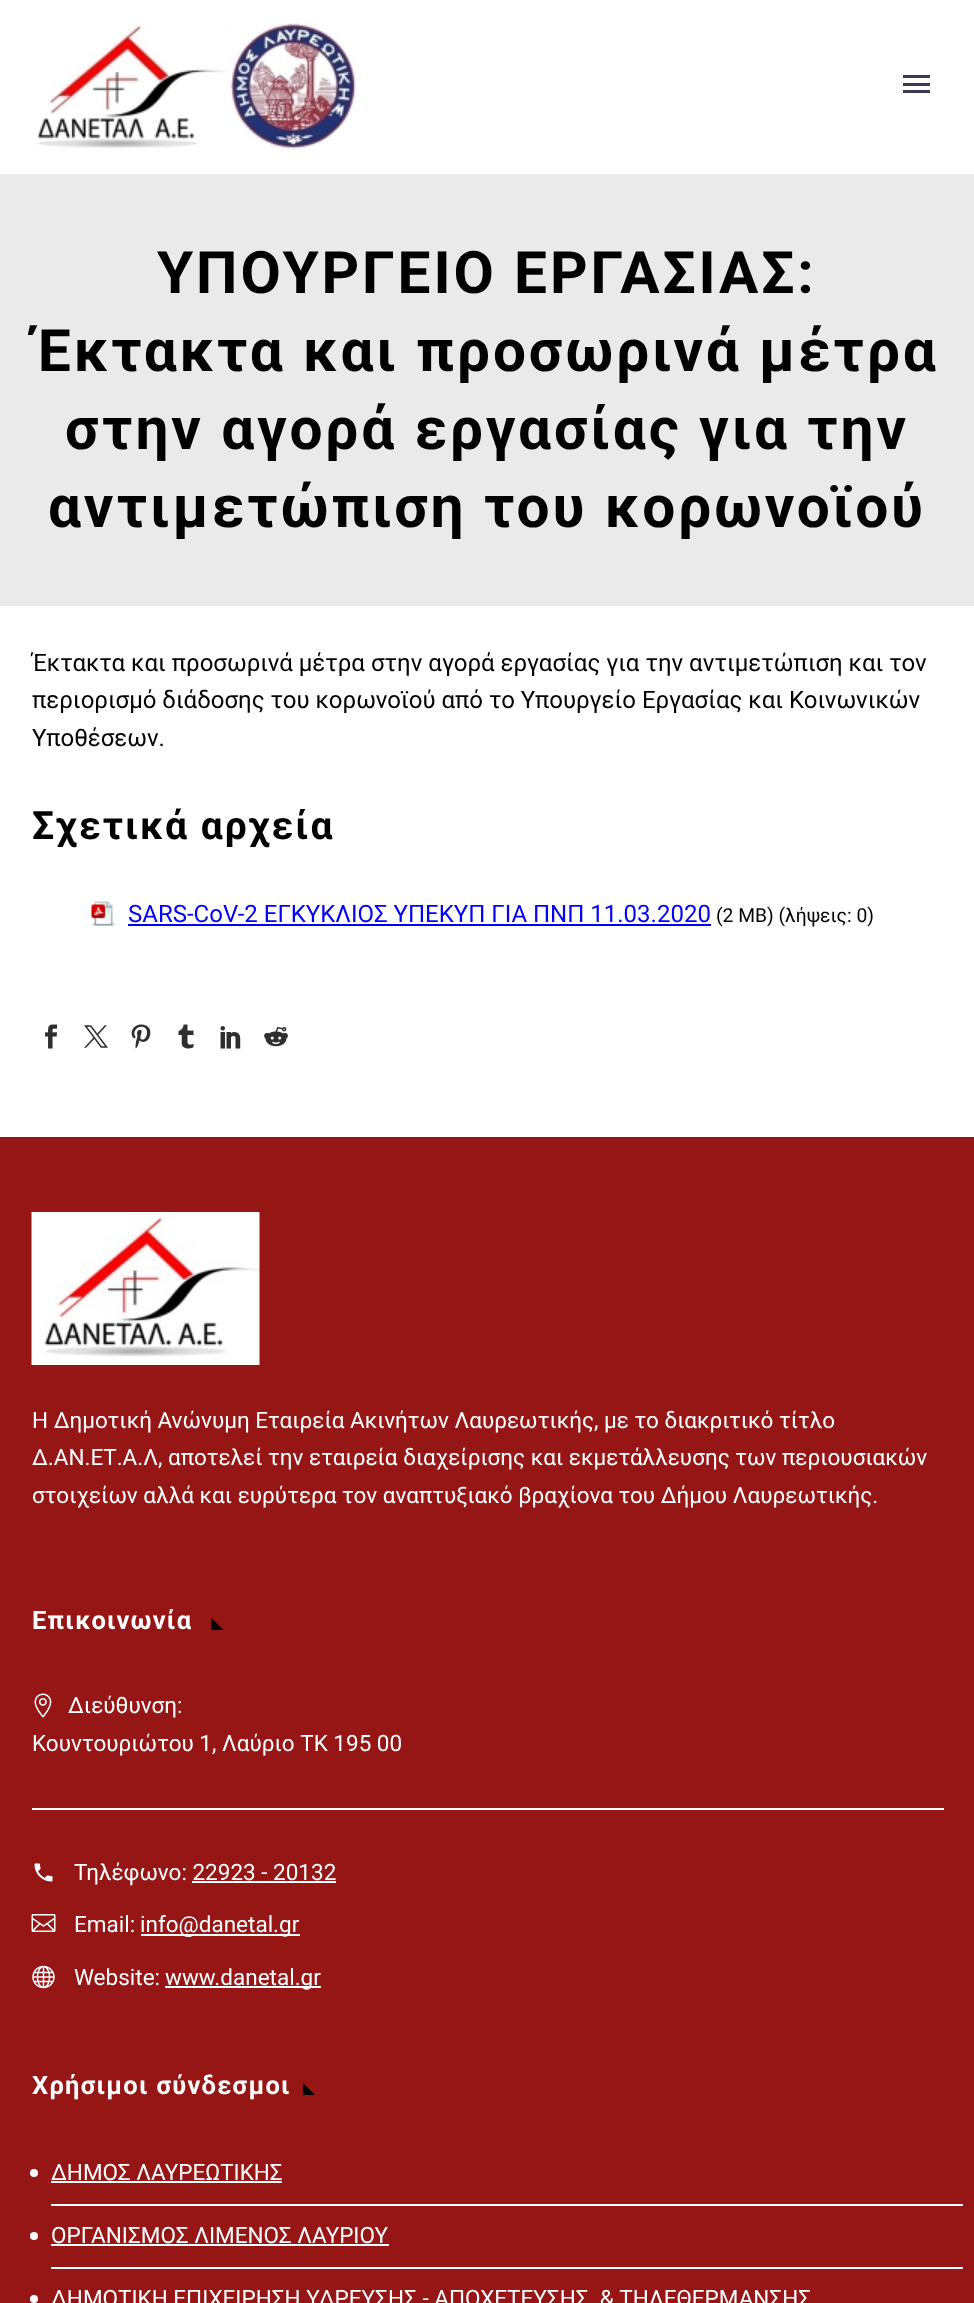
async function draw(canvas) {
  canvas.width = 974
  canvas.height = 2303
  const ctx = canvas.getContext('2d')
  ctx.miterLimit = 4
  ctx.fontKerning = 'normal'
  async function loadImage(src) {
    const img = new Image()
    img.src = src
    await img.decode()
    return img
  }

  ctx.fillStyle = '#fff'
  ctx.fillRect(0, 0, 974, 2303)
  ctx.drawImage(await loadImage('image0.png'), 37, 23, 319, 128)
  ctx.fillStyle = '#3c3950'
  ctx.fillRect(903, 75, 27, 3)
  ctx.fillRect(903, 83, 27, 3)
  ctx.fillRect(903, 90, 27, 3)
  ctx.fillStyle = '#eaeaea'
  ctx.fillRect(0, 174, 974, 432)
  ctx.letterSpacing = '2.9px'
  ctx.font = 'bold 58.5px Roboto'
  ctx.fillStyle = '#000'
  ctx.fillText('ΥΠΟΥΡΓΕΙΟ ΕΡΓΑΣΙΑΣ:', 157, 293)
  ctx.fillText('Έκτακτα και προσωρινά μέτρα', 35, 371)
  ctx.fillText('στην αγορά εργασίας για την', 65, 449)
  ctx.fillText('αντιμετώπιση του κορωνοϊού', 48, 527)
  ctx.letterSpacing = '0px'
  ctx.font = '24px Roboto'
  ctx.fillText('Έκτακτα και προσωρινά μέτρα στην αγορά εργασίας για την αντιμετώπιση και τον', 32, 671)
  ctx.fillText('περιορισμό διάδοσης του κορωνοϊού από το Υπουργείο Εργασίας και Κοινωνικών', 32, 708)
  ctx.fillText('Υποθέσεων.', 32, 746)
  ctx.letterSpacing = '2px'
  ctx.font = 'bold 39px Roboto'
  ctx.fillText('Σχετικά αρχεία', 32, 839)
  ctx.drawImage(await loadImage('image1.png'), 91, 901, 25, 25)
  ctx.letterSpacing = '0px'
  ctx.font = '24px Roboto'
  ctx.fillStyle = '#00f'
  ctx.fillText('SARS-CoV-2 ΕΓΚΥΚΛΙΟΣ ΥΠΕΚΥΠ ΓΙΑ ΠΝΠ 11.03.2020', 128, 922)
  ctx.fillRect(128, 924, 583, 2)
  ctx.font = '19.25px Roboto'
  ctx.fillStyle = '#000'
  ctx.fillText('(2 MB) (λήψεις: 0)', 716, 922)
  ctx.drawImage(await loadImage('image2.png'), 45, 1024, 13, 25)
  ctx.drawImage(await loadImage('image3.png'), 84, 1025, 24, 23)
  ctx.drawImage(await loadImage('image4.png'), 131, 1024, 20, 25)
  ctx.drawImage(await loadImage('image5.png'), 178, 1024, 16, 25)
  ctx.drawImage(await loadImage('image6.png'), 220, 1026, 21, 23)
  ctx.drawImage(await loadImage('image7.png'), 264, 1027, 24, 20)
  ctx.fillStyle = '#961515'
  ctx.fillRect(0, 1137, 974, 1166)
  ctx.drawImage(await loadImage('image8.png'), 31, 1212, 229, 153)
  ctx.font = '22.5px Roboto'
  ctx.fillStyle = '#fff'
  ctx.fillText('H Δημοτική Ανώνυμη Εταιρεία Ακινήτων Λαυρεωτικής, με το διακριτικό τίτλο', 32, 1428)
  ctx.fillText('Δ.ΑΝ.ΕΤ.Α.Λ, αποτελεί την εταιρεία διαχείρισης και εκμετάλλευσης των περιουσιακών', 32, 1465)
  ctx.fillText('στοιχείων αλλά και ευρύτερα τον αναπτυξιακό βραχίονα του Δήμου Λαυρεωτικής.', 32, 1503)
  ctx.letterSpacing = '1.25px'
  ctx.font = 'bold 25.5px Roboto'
  ctx.fillText('Επικοινωνία', 32, 1629)
  ctx.fillStyle = '#000'
  ctx.beginPath()
  ctx.moveTo(211.5, 1618)
  ctx.lineTo(211.5, 1630)
  ctx.lineTo(223.5, 1630)
  ctx.closePath()
  ctx.fill()
  ctx.fillStyle = '#fff'
  ctx.fillRect(32, 1808, 912, 2)
  ctx.drawImage(await loadImage('image9.png'), 34, 1693, 18, 25)
  ctx.letterSpacing = '0px'
  ctx.font = '22.5px Roboto'
  ctx.fillText('Διεύθυνση:', 68, 1713)
  ctx.fillText('Κουντουριώτου 1, Λαύριο ΤΚ 195 00', 32, 1751)
  ctx.drawImage(await loadImage('image10.png'), 34, 1863, 19, 19)
  ctx.fillText('Τηλέφωνο: 22923 - 20132', 74, 1880)
  ctx.fillRect(192, 1881, 144, 2)
  ctx.drawImage(await loadImage('image11.png'), 31, 1914, 25, 18)
  ctx.fillText('Email:', 74, 1932)
  ctx.fillRect(141, 1934, 159, 2)
  ctx.fillText('info@danetal.gr', 140, 1932)
  ctx.drawImage(await loadImage('image12.png'), 32, 1965, 23, 24)
  ctx.fillText('Website:', 74, 1985)
  ctx.fillRect(165, 1986, 156, 2)
  ctx.fillText('www.danetal.gr', 165, 1985)
  ctx.letterSpacing = '1.25px'
  ctx.font = 'bold 25.5px Roboto'
  ctx.fillText('Χρήσιμοι σύνδεσμοι', 32, 2094)
  ctx.fillStyle = '#000'
  ctx.beginPath()
  ctx.moveTo(303, 2083)
  ctx.lineTo(303, 2095)
  ctx.lineTo(315, 2095)
  ctx.closePath()
  ctx.fill()
  ctx.fillStyle = '#fff'
  ctx.fillRect(51, 2204, 912, 2)
  ctx.beginPath()
  ctx.arc(34, 2173, 4, 0, 2 * Math.PI)
  ctx.fill()
  ctx.letterSpacing = '0px'
  ctx.font = '22.5px Roboto'
  ctx.fillText('ΔΗΜΟΣ ΛΑΥΡΕΩΤΙΚΗΣ', 51, 2180)
  ctx.fillRect(51, 2181, 231, 2)
  ctx.fillRect(51, 2267, 912, 2)
  ctx.beginPath()
  ctx.arc(34, 2236, 4, 0, 2 * Math.PI)
  ctx.fill()
  ctx.fillText('ΟΡΓΑΝΙΣΜΟΣ ΛΙΜΕΝΟΣ ΛΑΥΡΙΟΥ', 51, 2243)
  ctx.fillRect(51, 2244, 338, 2)
  ctx.beginPath()
  ctx.arc(34, 2299, 4, 0, 2 * Math.PI)
  ctx.fill()
  ctx.fillText('ΔΗΜΟΤΙΚΗ ΕΠΙΧΕΙΡΗΣΗ ΥΔΡΕΥΣΗΣ - ΑΠΟΧΕΤΕΥΣΗΣ  & ΤΗΛΕΘΕΡΜΑΝΣΗΣ', 51, 2306)
}

draw(document.querySelector('canvas'))
